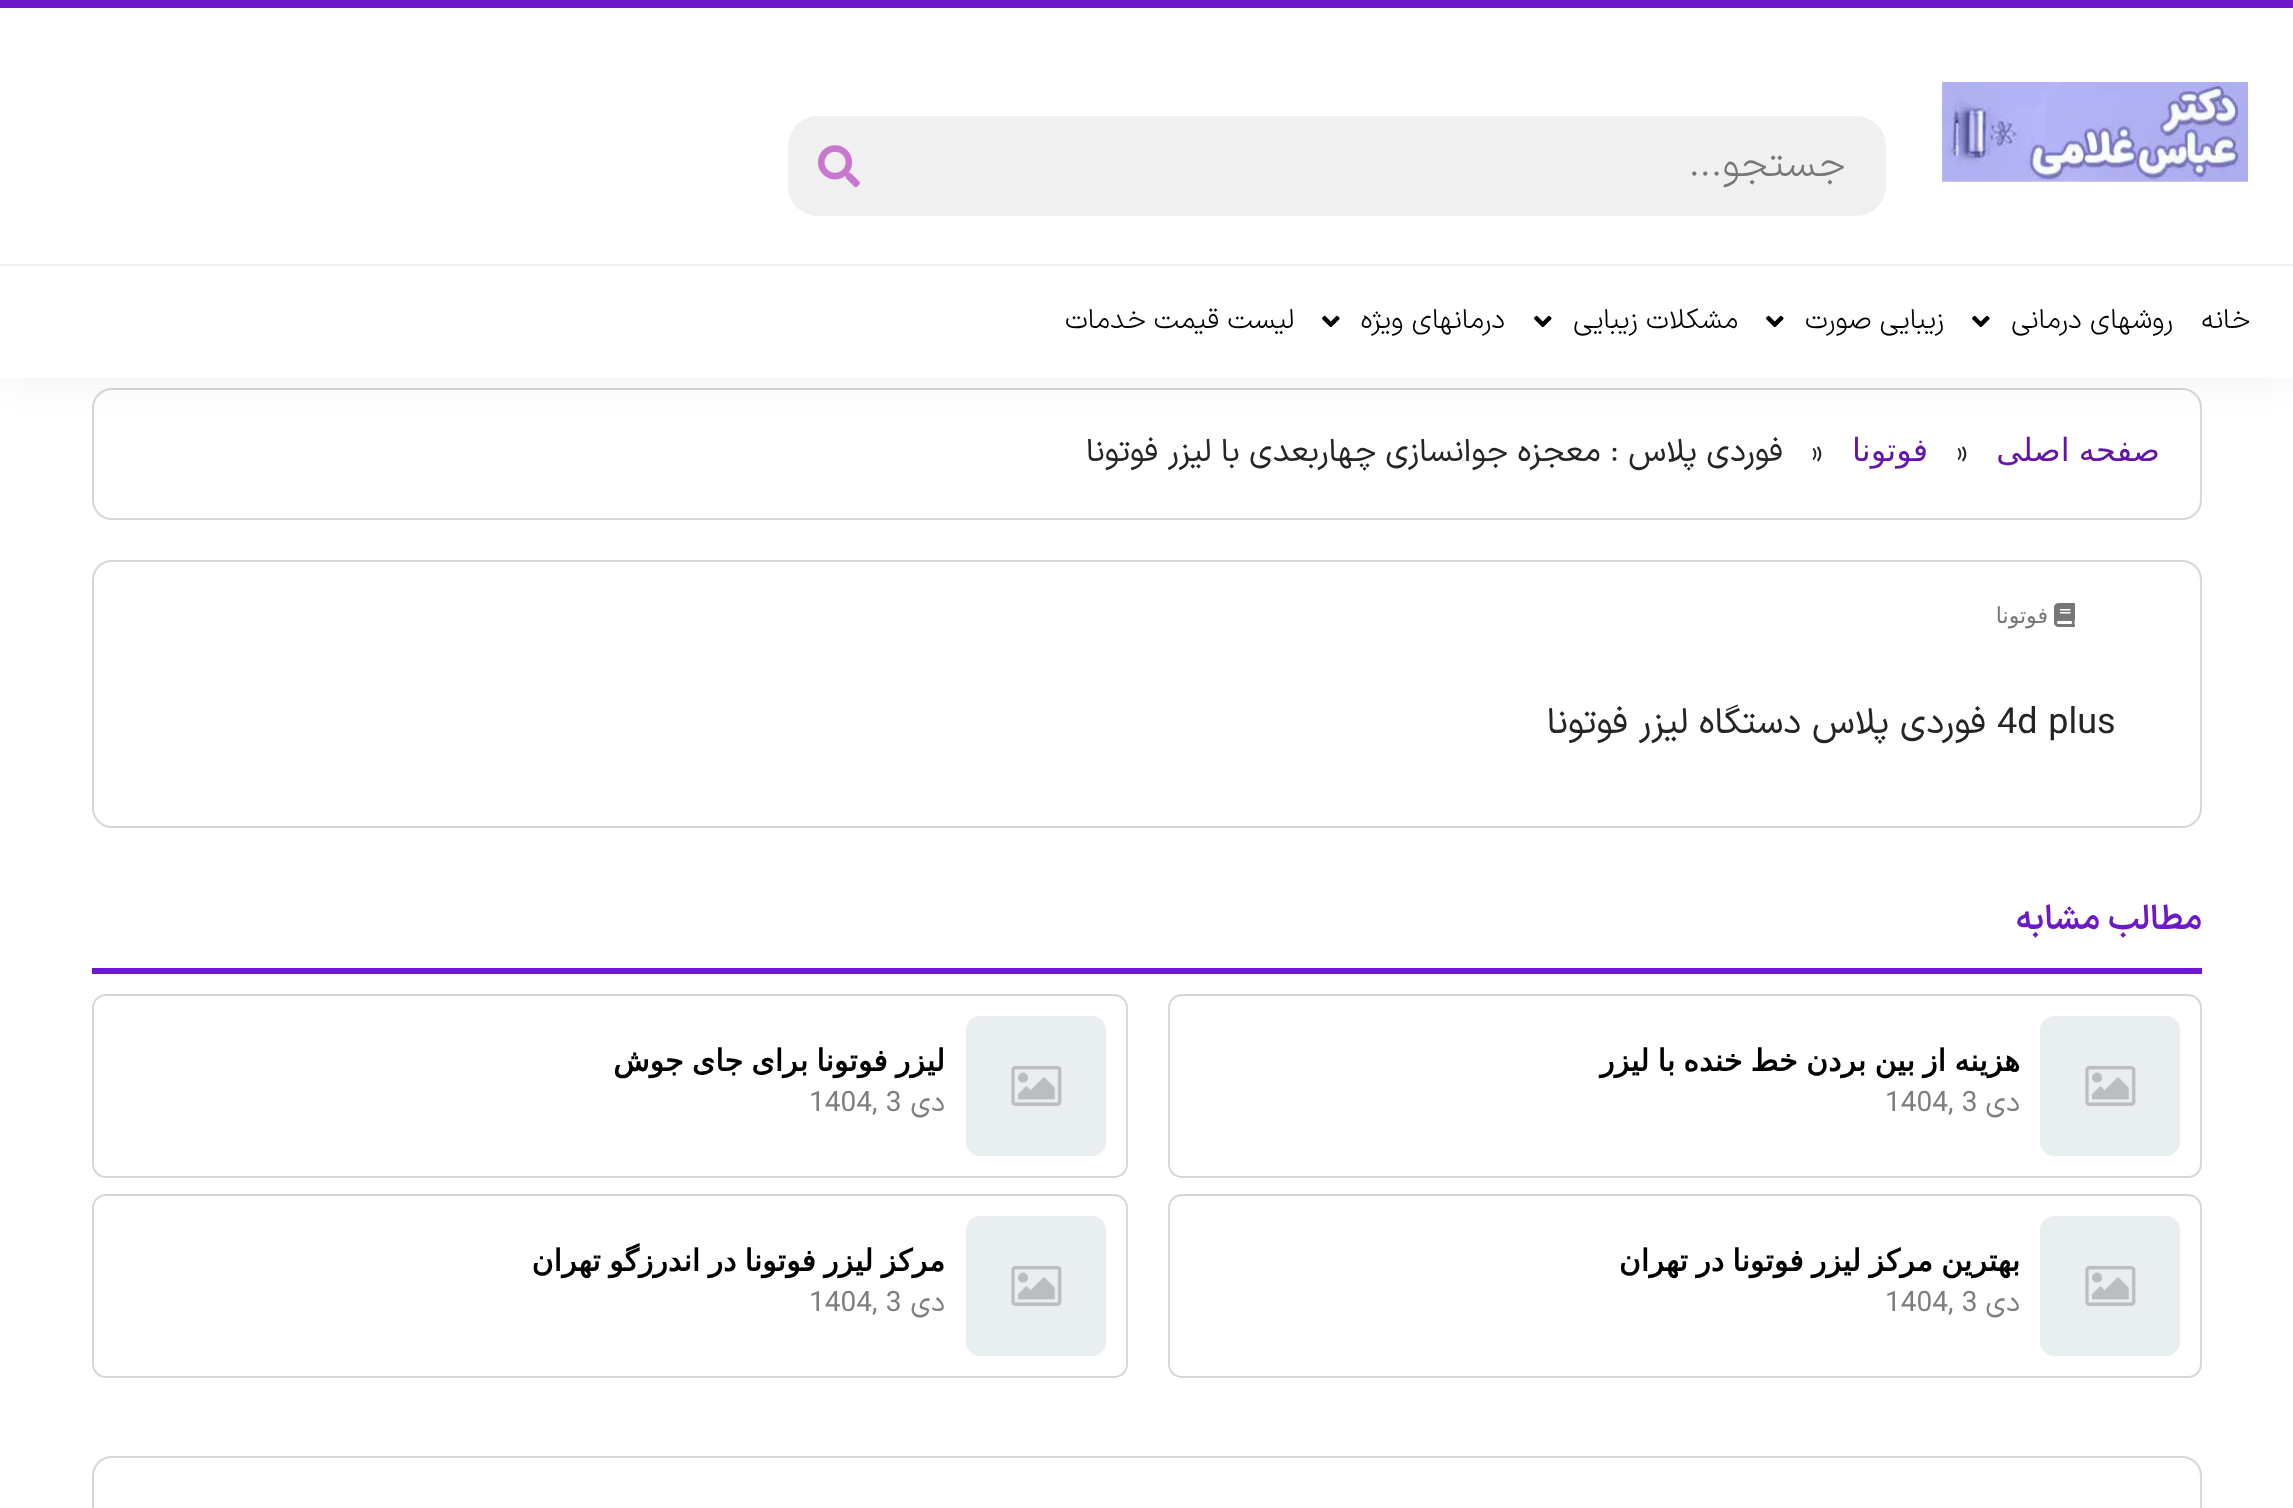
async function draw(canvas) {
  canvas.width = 2293
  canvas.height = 1508
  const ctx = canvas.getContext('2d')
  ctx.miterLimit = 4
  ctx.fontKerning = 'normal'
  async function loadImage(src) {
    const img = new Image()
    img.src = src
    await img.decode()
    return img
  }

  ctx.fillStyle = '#fff'
  ctx.fillRect(0, 0, 2293, 1508)
  ctx.beginPath()
  ctx.roundRect(93, 389, 2108, 130, 19)
  ctx.strokeStyle = '#d4d8dd'
  ctx.lineWidth = 2
  ctx.stroke()
  ctx.fillStyle = '#0000000f'
  ctx.filter = 'blur(20px)'
  ctx.beginPath()
  ctx.rect(0, 0, 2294, 378)
  ctx.fill()
  ctx.filter = 'none'
  ctx.fillStyle = '#fff'
  ctx.fillRect(0, 8, 2293, 370)
  ctx.fillStyle = '#6d18c9'
  ctx.fillRect(0, 0, 2293, 8)
  ctx.fillStyle = '#f0f0f0'
  ctx.fillRect(0, 264, 2293, 2)
  ctx.drawImage(await loadImage('image0.png'), 1942, 82, 306, 100)
  ctx.beginPath()
  ctx.roundRect(788, 116, 1098, 100, 30)
  ctx.fill()
  ctx.direction = 'rtl'
  ctx.font = '300 40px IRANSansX'
  ctx.fillStyle = '#777'
  ctx.fillText('جستجو...', 1845, 176)
  ctx.drawImage(await loadImage('image1.png'), 818, 145, 42, 43)
  ctx.font = '300 28px IRANSansX'
  ctx.fillStyle = '#000'
  ctx.fillText('خانه', 2250, 328)
  ctx.fillText('روشهای درمانی', 2173, 328)
  ctx.drawImage(await loadImage('image2.png'), 1972, 315, 18, 13)
  ctx.fillText('زیبایی صورت', 1944, 328)
  ctx.drawImage(await loadImage('image2.png'), 1766, 315, 18, 13)
  ctx.fillText('مشکلات زیبایی', 1738, 328)
  ctx.drawImage(await loadImage('image2.png'), 1534, 315, 18, 13)
  ctx.fillText('درمانهای ویژه', 1505, 328)
  ctx.drawImage(await loadImage('image2.png'), 1322, 315, 18, 13)
  ctx.fillText('لیست قیمت خدمات', 1294, 328)
  ctx.wordSpacing = '-1px'
  ctx.font = '32px DejaVu Sans'
  ctx.fillStyle = '#6315aa'
  ctx.fillText('صفحه اصلی', 2160, 461)
  ctx.wordSpacing = '0px'
  ctx.direction = 'ltr'
  ctx.font = '32px IRANSansX'
  ctx.fillStyle = '#252525'
  ctx.fillText('»', 1956, 461)
  ctx.direction = 'rtl'
  ctx.font = '32px DejaVu Sans'
  ctx.fillStyle = '#6315aa'
  ctx.fillText('فوتونا', 1928, 461)
  ctx.direction = 'ltr'
  ctx.font = '32px IRANSansX'
  ctx.fillStyle = '#252525'
  ctx.fillText('»', 1811, 461)
  ctx.direction = 'rtl'
  ctx.fillText('فوردی پلاس : معجزه جوانسازی چهاربعدی با لیزر فوتونا', 1783, 461)
  ctx.beginPath()
  ctx.roundRect(93, 561, 2108, 266, 19)
  ctx.stroke()
  ctx.drawImage(await loadImage('image3.png'), 2054, 603, 21, 24)
  ctx.font = '22px DejaVu Sans'
  ctx.fillStyle = '#777'
  ctx.fillText('فوتونا', 2048, 623)
  ctx.direction = 'ltr'
  ctx.font = '36px IRANSansX'
  ctx.fillStyle = '#252525'
  ctx.fillText('4d plus', 1997, 733)
  ctx.direction = 'rtl'
  ctx.fillText('فوردی پلاس دستگاه لیزر فوتونا', 1986, 733)
  ctx.fillStyle = '#6d18c9'
  ctx.fillRect(92, 968, 2110, 6)
  ctx.font = '600 34px IRANSansX'
  ctx.fillText('مطالب مشابه', 2202, 929)
  ctx.beginPath()
  ctx.roundRect(1169, 995, 1032, 182, 13)
  ctx.stroke()
  ctx.drawImage(await loadImage('image4.png'), 2040, 1016, 140, 140)
  ctx.wordSpacing = '-1.25px'
  ctx.font = 'bold 30px DejaVu Sans'
  ctx.fillStyle = '#000'
  ctx.fillText('هزینه از بین بردن خط خنده با لیزر', 2020, 1071)
  ctx.wordSpacing = '0px'
  ctx.font = '28px IRANSansX'
  ctx.fillStyle = '#7e7e7e'
  ctx.fillText('دی', 2020, 1111)
  ctx.direction = 'ltr'
  ctx.fillText('1404, 3', 1885, 1111)
  ctx.beginPath()
  ctx.roundRect(93, 995, 1034, 182, 13)
  ctx.stroke()
  ctx.drawImage(await loadImage('image4.png'), 966, 1016, 140, 140)
  ctx.wordSpacing = '-1.25px'
  ctx.direction = 'rtl'
  ctx.font = 'bold 30px DejaVu Sans'
  ctx.fillStyle = '#000'
  ctx.fillText('لیزر فوتونا برای جای جوش', 945, 1071)
  ctx.wordSpacing = '0px'
  ctx.font = '28px IRANSansX'
  ctx.fillStyle = '#7e7e7e'
  ctx.fillText('دی', 945, 1111)
  ctx.direction = 'ltr'
  ctx.fillText('1404, 3', 809, 1111)
  ctx.beginPath()
  ctx.roundRect(1169, 1195, 1032, 182, 13)
  ctx.stroke()
  ctx.drawImage(await loadImage('image5.png'), 2040, 1216, 140, 140)
  ctx.wordSpacing = '-1.25px'
  ctx.direction = 'rtl'
  ctx.font = 'bold 30px DejaVu Sans'
  ctx.fillStyle = '#000'
  ctx.fillText('بهترین مرکز لیزر فوتونا در تهران', 2020, 1271)
  ctx.wordSpacing = '0px'
  ctx.font = '28px IRANSansX'
  ctx.fillStyle = '#7e7e7e'
  ctx.fillText('دی', 2020, 1311)
  ctx.direction = 'ltr'
  ctx.fillText('1404, 3', 1885, 1311)
  ctx.beginPath()
  ctx.roundRect(93, 1195, 1034, 182, 13)
  ctx.stroke()
  ctx.drawImage(await loadImage('image5.png'), 966, 1216, 140, 140)
  ctx.wordSpacing = '-1.25px'
  ctx.direction = 'rtl'
  ctx.font = 'bold 30px DejaVu Sans'
  ctx.fillStyle = '#000'
  ctx.fillText('مرکز لیزر فوتونا در اندرزگو تهران', 945, 1271)
  ctx.wordSpacing = '0px'
  ctx.font = '28px IRANSansX'
  ctx.fillStyle = '#7e7e7e'
  ctx.fillText('دی', 945, 1311)
  ctx.direction = 'ltr'
  ctx.fillText('1404, 3', 809, 1311)
  ctx.beginPath()
  ctx.roundRect(93, 1457, 2108, 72, 19)
  ctx.stroke()
}

draw(document.querySelector('canvas'))
